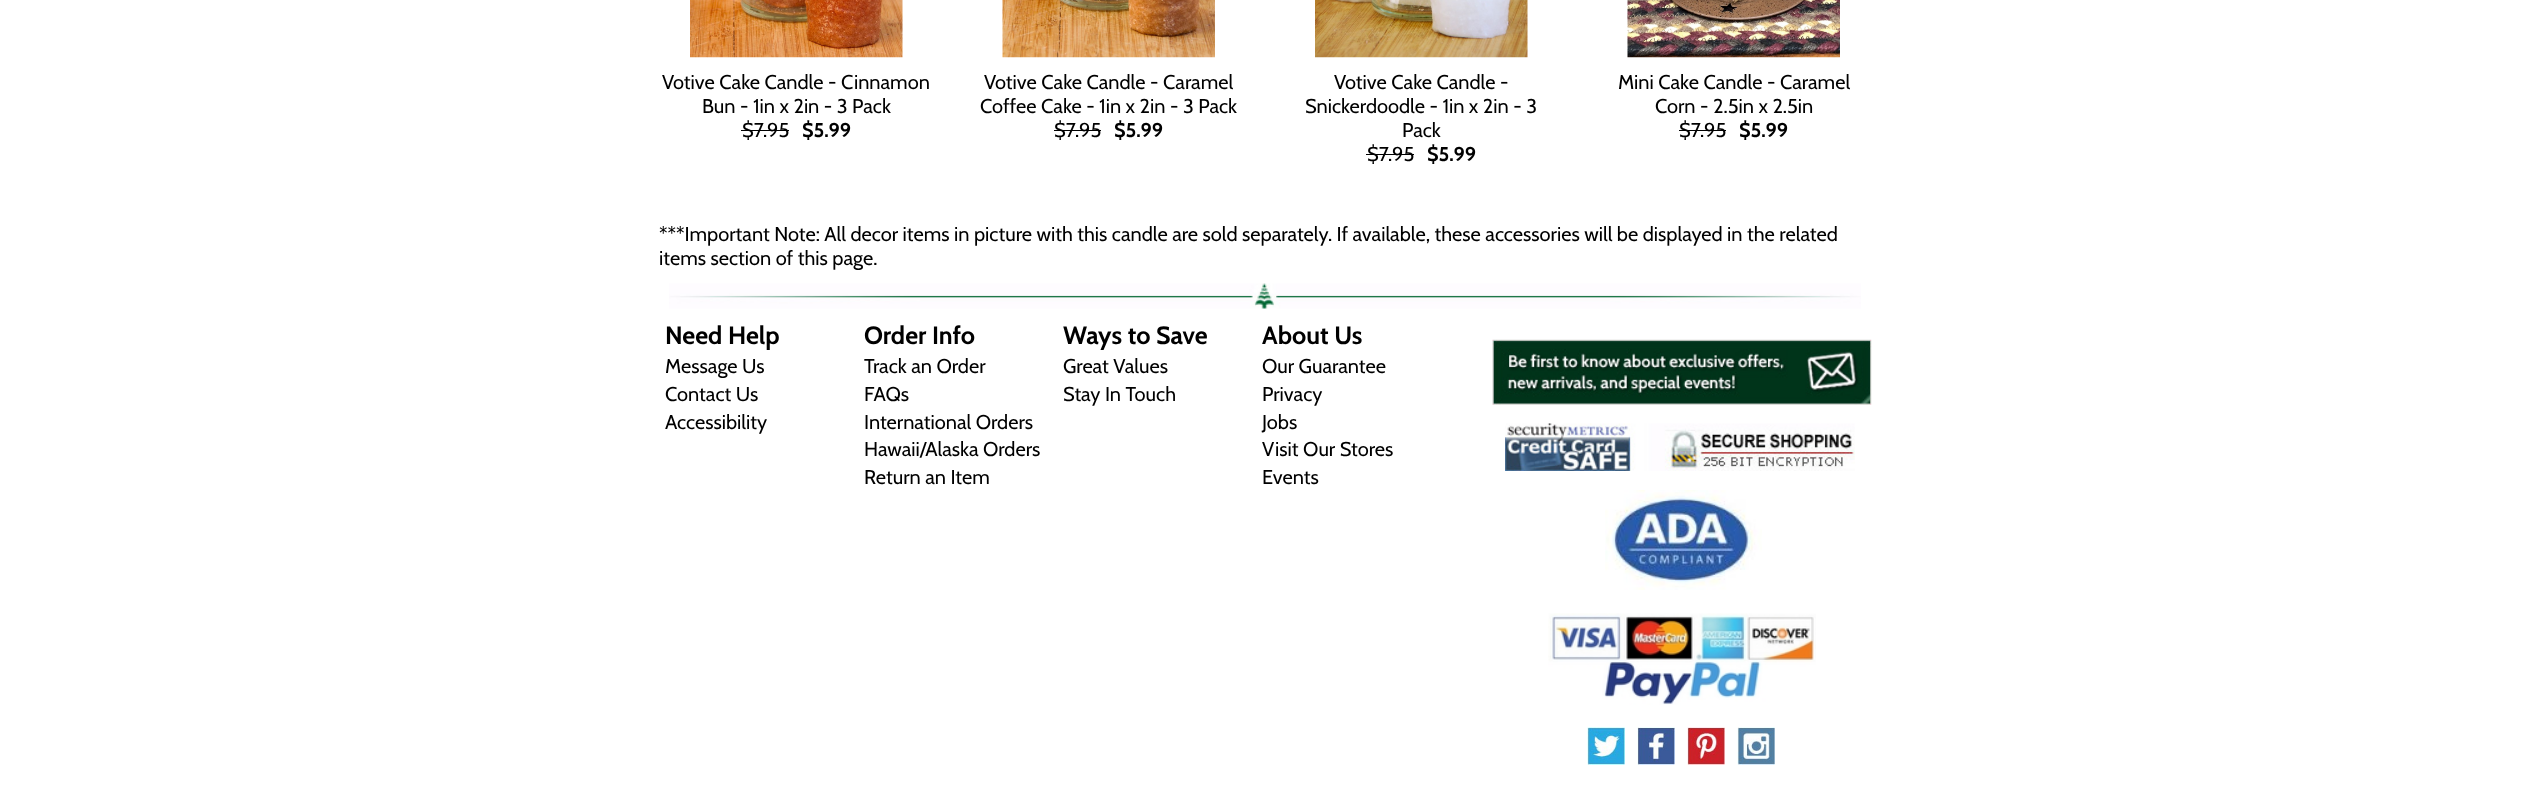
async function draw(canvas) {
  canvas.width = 2530
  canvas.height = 807
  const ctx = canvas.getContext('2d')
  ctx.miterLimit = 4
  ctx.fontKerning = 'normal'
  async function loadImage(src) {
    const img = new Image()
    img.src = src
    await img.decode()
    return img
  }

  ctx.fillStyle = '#fff'
  ctx.fillRect(0, 0, 2530, 807)
  ctx.drawImage(await loadImage('image0.png'), 690, 0, 213, 58)
  ctx.font = '20px Cabin'
  ctx.fillStyle = '#000'
  ctx.fillText('Votive Cake Candle - Cinnamon', 662, 89)
  ctx.fillText('Bun - 1in x 2in - 3 Pack', 702, 113)
  ctx.fillText('$7.95', 742, 137)
  ctx.fillRect(741, 130, 48, 1)
  ctx.font = 'bold 20px Cabin'
  ctx.fillText('$5.99', 802, 137)
  ctx.drawImage(await loadImage('image1.png'), 1002, 0, 213, 58)
  ctx.font = '20px Cabin'
  ctx.fillText('Votive Cake Candle - Caramel', 984, 89)
  ctx.fillText('Coffee Cake - 1in x 2in - 3 Pack', 980, 113)
  ctx.fillText('$7.95', 1054, 137)
  ctx.fillRect(1054, 130, 47, 1)
  ctx.font = 'bold 20px Cabin'
  ctx.fillText('$5.99', 1114, 137)
  ctx.drawImage(await loadImage('image2.png'), 1315, 0, 213, 58)
  ctx.font = '20px Cabin'
  ctx.fillText('Votive Cake Candle -', 1334, 89)
  ctx.fillText('Snickerdoodle - 1in x 2in - 3', 1305, 113)
  ctx.fillText('Pack', 1402, 137)
  ctx.fillText('$7.95', 1367, 161)
  ctx.fillRect(1366, 154, 48, 1)
  ctx.font = 'bold 20px Cabin'
  ctx.fillText('$5.99', 1427, 161)
  ctx.drawImage(await loadImage('image3.png'), 1627, 0, 213, 58)
  ctx.font = '20px Cabin'
  ctx.fillText('Mini Cake Candle - Caramel', 1618, 89)
  ctx.fillText('Corn - 2.5in x 2.5in', 1655, 113)
  ctx.fillText('$7.95', 1679, 137)
  ctx.fillRect(1679, 130, 47, 1)
  ctx.font = 'bold 20px Cabin'
  ctx.fillText('$5.99', 1739, 137)
  ctx.font = '20px Cabin'
  ctx.fillText('***Important Note: All decor items in picture with this candle are sold separately. If available, these accessories will be displayed in the related', 659, 241)
  ctx.fillText('items section of this page.', 659, 265)
  ctx.drawImage(await loadImage('image4.png'), 669, 283, 1192, 26)
  ctx.font = 'bold 25px Cabin'
  ctx.fillText('Need Help', 665, 344)
  ctx.font = '20px Cabin'
  ctx.fillText('Message Us', 665, 373)
  ctx.fillText('Contact Us', 665, 401)
  ctx.fillText('Accessibility', 665, 429)
  ctx.font = 'bold 25px Cabin'
  ctx.fillText('Order Info', 864, 344)
  ctx.font = '20px Cabin'
  ctx.fillText('Track an Order', 864, 373)
  ctx.fillText('FAQs', 864, 401)
  ctx.fillText('International Orders', 864, 429)
  ctx.fillText('Hawaii/Alaska Orders', 864, 456)
  ctx.fillText('Return an Item', 864, 484)
  ctx.font = 'bold 25px Cabin'
  ctx.fillText('Ways to Save', 1063, 344)
  ctx.font = '20px Cabin'
  ctx.fillText('Great Values', 1063, 373)
  ctx.fillText('Stay In Touch', 1063, 401)
  ctx.font = 'bold 25px Cabin'
  ctx.fillText('About Us', 1262, 344)
  ctx.font = '20px Cabin'
  ctx.fillText('Our Guarantee', 1262, 373)
  ctx.fillText('Privacy', 1262, 401)
  ctx.fillText('Jobs', 1262, 429)
  ctx.fillText('Visit Our Stores', 1262, 456)
  ctx.fillText('Events', 1262, 484)
  ctx.drawImage(await loadImage('image5.png'), 1492, 339, 380, 66)
  ctx.drawImage(await loadImage('image6.png'), 1505, 423, 350, 48)
  ctx.drawImage(await loadImage('image7.png'), 1605, 490, 157, 100)
  ctx.drawImage(await loadImage('image8.png'), 1548, 613, 268, 92)
  ctx.drawImage(await loadImage('image9.png'), 1587, 727, 38, 38)
  ctx.drawImage(await loadImage('image10.png'), 1637, 727, 38, 38)
  ctx.drawImage(await loadImage('image11.png'), 1687, 727, 38, 38)
  ctx.drawImage(await loadImage('image12.png'), 1737, 727, 38, 38)
}

draw(document.querySelector('canvas'))
